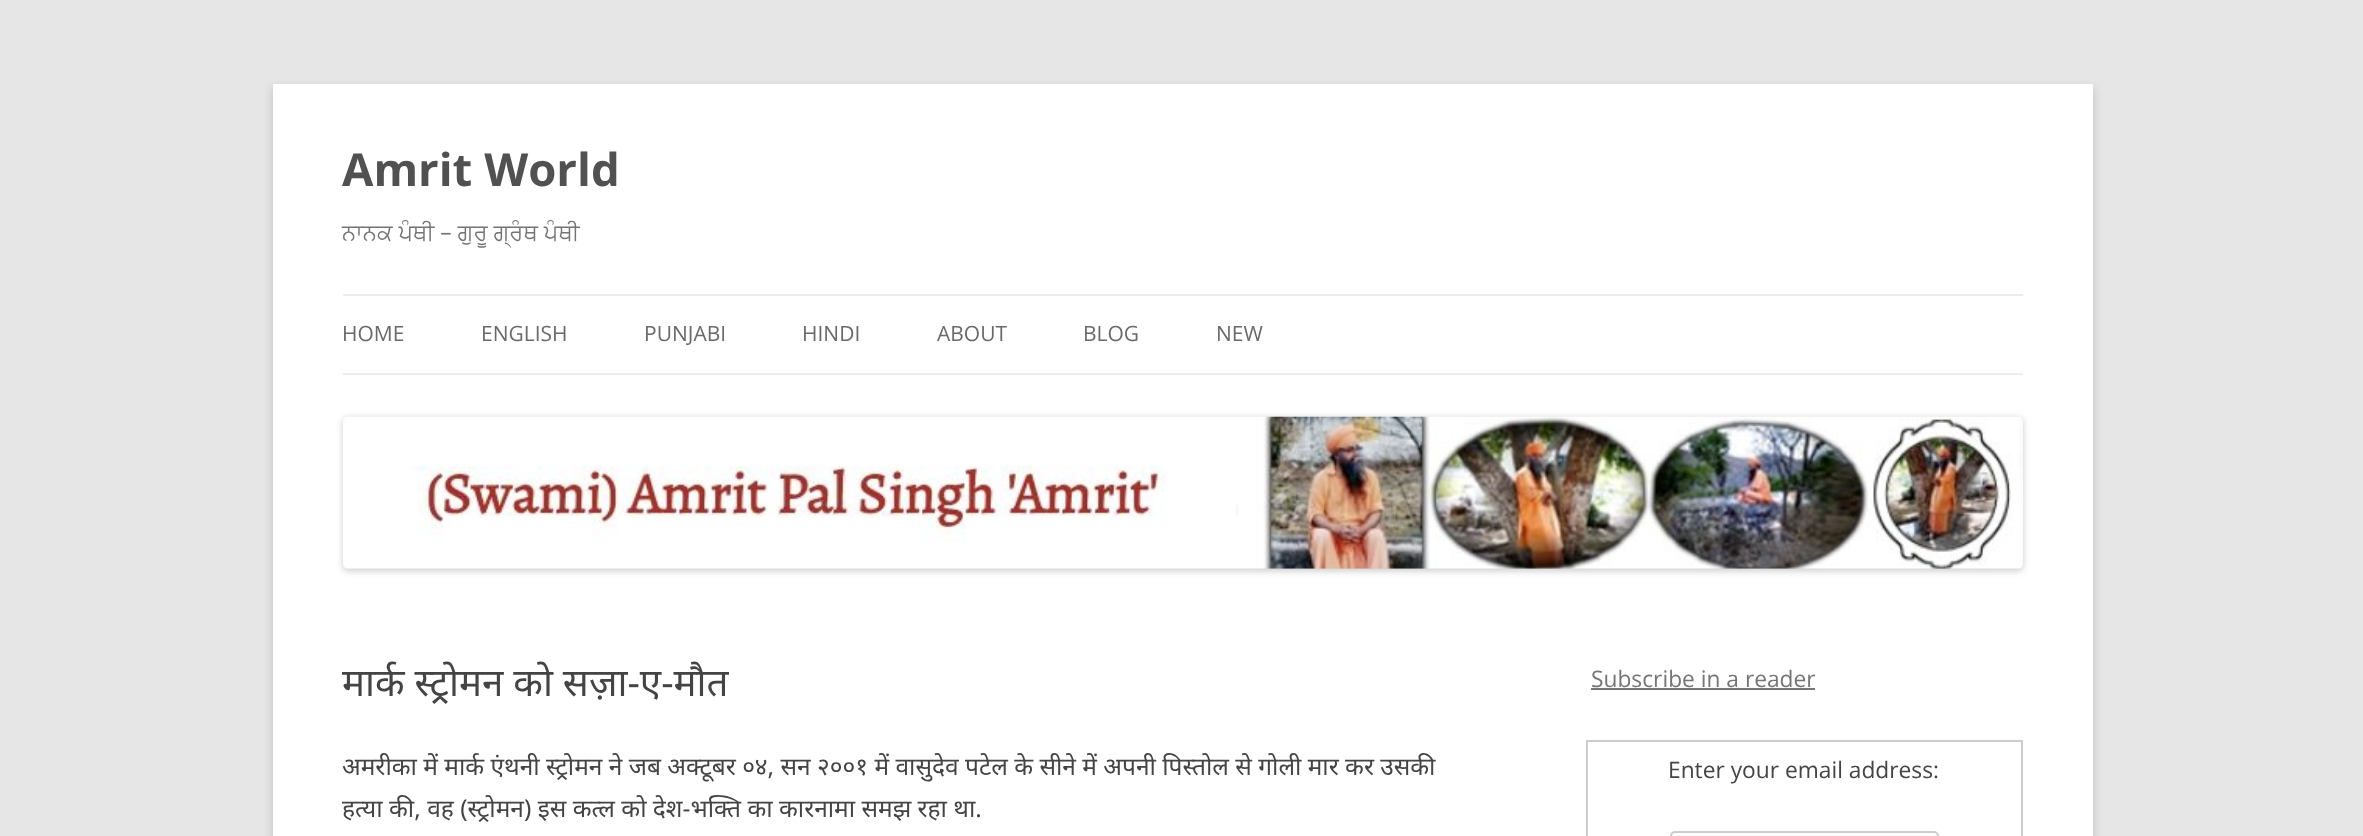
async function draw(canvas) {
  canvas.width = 2363
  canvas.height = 836
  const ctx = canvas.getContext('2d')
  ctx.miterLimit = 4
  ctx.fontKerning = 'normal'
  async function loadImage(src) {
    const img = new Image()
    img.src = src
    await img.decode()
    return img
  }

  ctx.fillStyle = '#e6e6e6'
  ctx.fillRect(0, 0, 2363, 836)
  ctx.fillStyle = '#6464644d'
  ctx.filter = 'blur(5px)'
  ctx.beginPath()
  ctx.rect(273, 88, 1820, 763)
  ctx.fill()
  ctx.filter = 'none'
  ctx.fillStyle = '#fff'
  ctx.fillRect(273, 84, 1820, 752)
  ctx.font = 'bold 45.5px Open Sans'
  ctx.fillStyle = '#515151'
  ctx.fillText('Amrit World', 342, 186)
  ctx.wordSpacing = '0.25px'
  ctx.font = '22.75px FreeSans'
  ctx.fillStyle = '#757575'
  ctx.fillText('ਨਾਨਕ ਪੰਥੀ – ਗੁਰੂ ਗ੍ਰੰਥ ਪੰਥੀ', 342, 240)
  ctx.fillStyle = '#ededed'
  ctx.fillRect(343, 294, 1680, 2)
  ctx.fillRect(343, 373, 1680, 2)
  ctx.wordSpacing = '0px'
  ctx.font = '21px Open Sans'
  ctx.fillStyle = '#6a6a6a'
  ctx.fillText('HOME', 342, 341)
  ctx.fillText('ENGLISH', 481, 341)
  ctx.fillText('PUNJABI', 644, 341)
  ctx.fillText('HINDI', 802, 341)
  ctx.fillText('ABOUT', 937, 341)
  ctx.fillText('BLOG', 1083, 341)
  ctx.fillText('NEW', 1216, 341)
  ctx.fillStyle = '#00000033'
  ctx.filter = 'blur(3.5px)'
  ctx.beginPath()
  ctx.roundRect(343, 418, 1680, 153, 5)
  ctx.fill()
  ctx.filter = 'none'
  ctx.drawImage(await loadImage('image0.png'), 343, 416, 1680, 153)
  ctx.font = '38.5px Noto Sans'
  ctx.fillStyle = '#444'
  ctx.fillText('मार्क स्ट्रोमन को सज़ा-ए-मौत', 342, 696)
  ctx.font = '24.5px Noto Sans'
  ctx.fillText('अमरीका में मार्क एंथनी स्ट्रोमन ने जब अक्टूबर ०४, सन २००१ में वासुदेव पटेल के सीने में अपनी पिस्तोल से गोली मार कर उसकी', 342, 775)
  ctx.fillText('हत्या की, वह (स्ट्रोमन) इस कत्ल को देश-भक्ति का कारनामा समझ रहा था.', 342, 817)
  ctx.font = '22.75px Open Sans'
  ctx.fillStyle = '#757575'
  ctx.fillText('Subscribe in a reader', 1591, 687)
  ctx.fillRect(1591, 688, 224, 2)
  ctx.strokeStyle = '#ccc'
  ctx.lineWidth = 2
  ctx.strokeRect(1587, 741, 435, 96)
  ctx.fillStyle = '#444'
  ctx.fillText('Enter your email address:', 1668, 778)
  ctx.beginPath()
  ctx.roundRect(1671, 832, 267, 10, 4)
  ctx.stroke()
}

draw(document.querySelector('canvas'))
